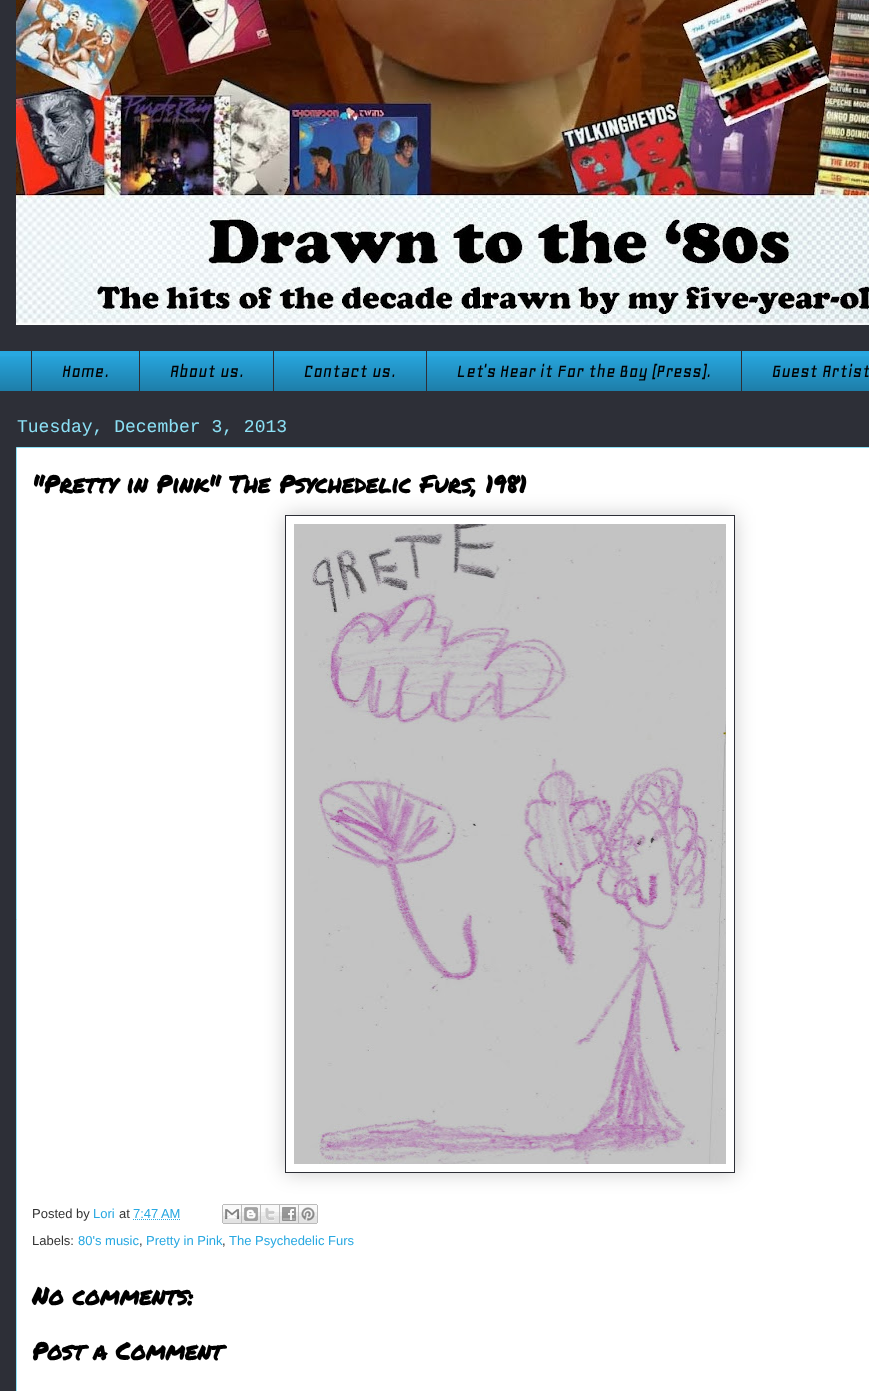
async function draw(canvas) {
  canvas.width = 869
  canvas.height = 1391
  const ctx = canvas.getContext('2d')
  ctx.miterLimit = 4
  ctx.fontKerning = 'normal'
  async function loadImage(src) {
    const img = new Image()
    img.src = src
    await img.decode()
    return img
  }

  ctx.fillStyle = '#2d2f37'
  ctx.fillRect(0, 0, 869, 1391)
  ctx.drawImage(await loadImage('image0.png'), 16, 0, 853, 325)
  ctx.fillStyle = '#28a8e1'
  ctx.fillRect(0, 351, 869, 40)
  ctx.drawImage(await loadImage('image1.png'), 0, 356, 869, 35)
  ctx.fillStyle = '#2d2f37'
  ctx.fillRect(31, 350, 1, 42)
  ctx.font = 'italic 500 20px Geo'
  ctx.fillStyle = '#000'
  ctx.fillText('Home.', 62, 377)
  ctx.fillStyle = '#2d2f37'
  ctx.fillRect(139, 350, 1, 42)
  ctx.fillStyle = '#000'
  ctx.fillText('About us.', 170, 377)
  ctx.fillStyle = '#2d2f37'
  ctx.fillRect(273, 350, 1, 42)
  ctx.fillStyle = '#000'
  ctx.fillText('Contact us.', 304, 377)
  ctx.fillStyle = '#2d2f37'
  ctx.fillRect(426, 350, 1, 42)
  ctx.fillStyle = '#000'
  ctx.fillText('Let\'s Hear it For the Boy (Press).', 457, 377)
  ctx.fillStyle = '#2d2f37'
  ctx.fillRect(741, 350, 1, 42)
  ctx.fillStyle = '#000'
  ctx.fillText('Guest Artist', 772, 377)
  ctx.fillStyle = '#fff'
  ctx.beginPath()
  ctx.rect(16.5, 447.5, 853, 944)
  ctx.fill()
  ctx.strokeStyle = '#8ce0f5'
  ctx.stroke()
  ctx.font = '18px Liberation Mono'
  ctx.fillStyle = '#8ce0f5'
  ctx.fillText('Tuesday, December 3, 2013', 17, 432)
  ctx.font = 'bold 24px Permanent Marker'
  ctx.fillStyle = '#000'
  ctx.fillText('"Pretty in Pink" The Psychedelic Furs, 1981', 32, 493)
  ctx.save()
  ctx.beginPath()
  ctx.moveTo(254, 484)
  ctx.lineTo(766, 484)
  ctx.lineTo(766, 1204)
  ctx.lineTo(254, 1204)
  ctx.closePath()
  ctx.moveTo(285, 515)
  ctx.lineTo(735, 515)
  ctx.lineTo(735, 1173)
  ctx.lineTo(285, 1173)
  ctx.closePath()
  ctx.clip('evenodd')
  ctx.fillStyle = '#00000033'
  ctx.filter = 'blur(10px)'
  ctx.beginPath()
  ctx.rect(285, 515, 450, 658)
  ctx.fill()
  ctx.filter = 'none'
  ctx.restore()
  ctx.strokeStyle = '#2d2f37'
  ctx.strokeRect(285.5, 515.5, 449, 657)
  ctx.drawImage(await loadImage('image2.png'), 294, 524, 432, 640)
  ctx.font = '13px Liberation Sans'
  ctx.fillStyle = '#333'
  ctx.fillText('Posted by', 32, 1218)
  ctx.fillStyle = '#28a8e1'
  ctx.fillText('Lori', 93, 1218)
  ctx.fillStyle = '#333'
  ctx.fillText('at', 119, 1218)
  ctx.fillStyle = '#28a8e1'
  ctx.fillText('7:47 AM', 133, 1218)
  ctx.beginPath()
  ctx.moveTo(133, 1219.5)
  ctx.lineTo(180.5, 1219.5)
  ctx.strokeStyle = '#28a8e1'
  ctx.setLineDash([1, 1])
  ctx.stroke()
  ctx.drawImage(await loadImage('image3.png'), 222, 1204, 20, 20)
  ctx.drawImage(await loadImage('image4.png'), 242, 1204, 19, 20)
  ctx.drawImage(await loadImage('image5.png'), 261, 1204, 19, 20)
  ctx.drawImage(await loadImage('image6.png'), 280, 1204, 19, 20)
  ctx.drawImage(await loadImage('image7.png'), 299, 1204, 19, 20)
  ctx.fillStyle = '#333'
  ctx.fillText('Labels:', 32, 1245)
  ctx.fillStyle = '#28a8e1'
  ctx.fillText('80\'s music', 78, 1245)
  ctx.fillStyle = '#333'
  ctx.fillText(',', 139, 1245)
  ctx.fillStyle = '#28a8e1'
  ctx.fillText('Pretty in Pink', 146, 1245)
  ctx.fillStyle = '#333'
  ctx.fillText(',', 222, 1245)
  ctx.fillStyle = '#28a8e1'
  ctx.fillText('The Psychedelic Furs', 229, 1245)
  ctx.font = 'bold 24px Permanent Marker'
  ctx.fillStyle = '#000'
  ctx.fillText('No comments:', 32, 1305)
  ctx.fillText('Post a Comment', 32, 1360)
}

draw(document.querySelector('canvas'))
